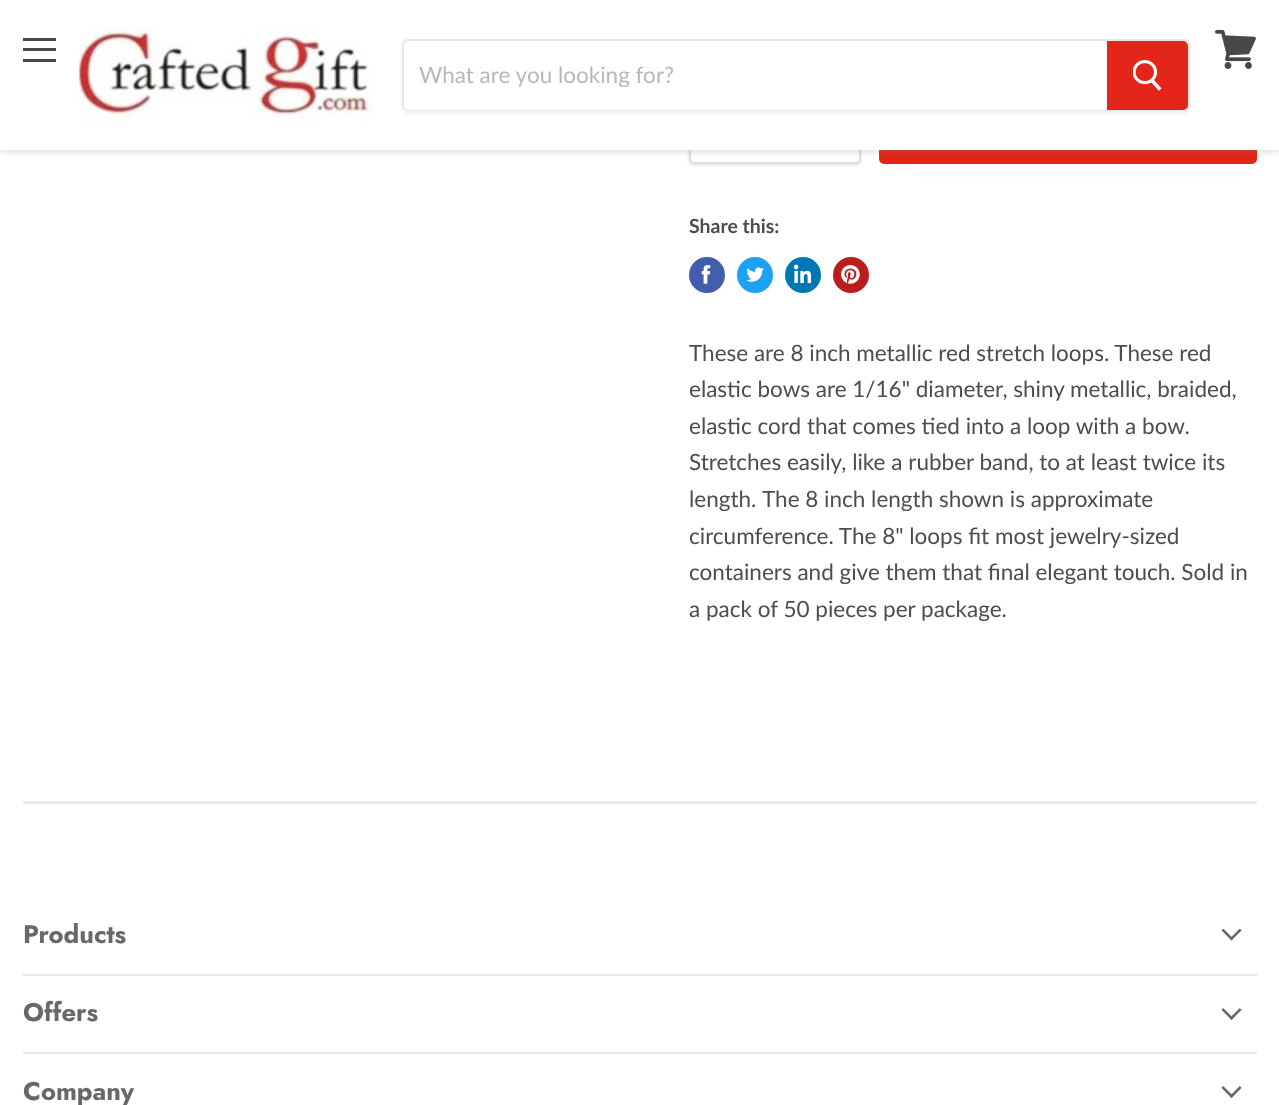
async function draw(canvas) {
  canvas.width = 1279
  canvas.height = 1105
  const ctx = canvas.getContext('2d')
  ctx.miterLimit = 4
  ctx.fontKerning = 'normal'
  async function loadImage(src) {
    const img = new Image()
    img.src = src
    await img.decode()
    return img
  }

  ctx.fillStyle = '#fff'
  ctx.fillRect(0, 0, 1279, 1105)
  ctx.fillStyle = '#00000026'
  ctx.filter = 'blur(1.5px)'
  ctx.beginPath()
  ctx.roundRect(689, 92, 172, 73, 5)
  ctx.fill()
  ctx.filter = 'none'
  ctx.fillStyle = '#fff'
  ctx.beginPath()
  ctx.roundRect(690, 91, 170, 72, 4)
  ctx.fill()
  ctx.strokeStyle = '#ddd'
  ctx.lineWidth = 2
  ctx.stroke()
  ctx.fillStyle = '#e32619'
  ctx.beginPath()
  ctx.roundRect(880, 93, 376, 70, 4)
  ctx.fill()
  ctx.strokeStyle = '#e32619'
  ctx.stroke()
  ctx.fillStyle = '#80808040'
  ctx.filter = 'blur(3px)'
  ctx.beginPath()
  ctx.rect(0, 2, 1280, 150)
  ctx.fill()
  ctx.filter = 'none'
  ctx.fillStyle = '#fff'
  ctx.fillRect(0, 0, 1279, 150)
  ctx.fillStyle = '#484848'
  ctx.fillRect(23, 38, 33, 3)
  ctx.fillRect(23, 48, 33, 3)
  ctx.fillRect(23, 59, 33, 3)
  ctx.drawImage(await loadImage('image0.png'), 1215, 30, 41, 39)
  ctx.drawImage(await loadImage('image1.png'), 79, 26, 295, 96)
  ctx.save()
  ctx.beginPath()
  ctx.moveTo(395, 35)
  ctx.lineTo(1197, 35)
  ctx.lineTo(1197, 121)
  ctx.lineTo(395, 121)
  ctx.closePath()
  ctx.moveTo(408, 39)
  ctx.lineTo(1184, 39)
  ctx.bezierCurveTo(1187.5, 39, 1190, 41.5, 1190, 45)
  ctx.lineTo(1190, 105)
  ctx.bezierCurveTo(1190, 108.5, 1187.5, 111, 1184, 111)
  ctx.lineTo(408, 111)
  ctx.bezierCurveTo(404.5, 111, 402, 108.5, 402, 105)
  ctx.lineTo(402, 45)
  ctx.bezierCurveTo(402, 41.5, 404.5, 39, 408, 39)
  ctx.closePath()
  ctx.clip('evenodd')
  ctx.fillStyle = '#8080801c'
  ctx.filter = 'blur(2px)'
  ctx.beginPath()
  ctx.roundRect(402, 42, 788, 72, 6)
  ctx.fill()
  ctx.filter = 'none'
  ctx.restore()
  ctx.beginPath()
  ctx.roundRect(403, 40, 786, 70, 5)
  ctx.strokeStyle = '#80808033'
  ctx.stroke()
  ctx.fillStyle = '#fff'
  ctx.beginPath()
  ctx.roundRect(404, 41, 703, 69, [5, 0, 0, 5])
  ctx.fill()
  ctx.font = '22.5px Lato'
  ctx.fillStyle = '#b8b8b8'
  ctx.fillText('What are you looking for?', 419, 83)
  ctx.fillStyle = '#e32619'
  ctx.beginPath()
  ctx.roundRect(1108, 42, 79, 67, [0, 4, 4, 0])
  ctx.fill()
  ctx.strokeStyle = '#e32619'
  ctx.stroke()
  ctx.drawImage(await loadImage('image2.png'), 1133, 60, 29, 31)
  ctx.font = 'bold 19.5px Lato'
  ctx.fillStyle = '#4d4d4d'
  ctx.fillText('Share this:', 689, 233)
  ctx.fillStyle = '#425dab'
  ctx.beginPath()
  ctx.arc(707, 275, 18, 0, 2 * Math.PI)
  ctx.fill()
  ctx.drawImage(await loadImage('image3.png'), 701, 265, 10, 19)
  ctx.fillStyle = '#1da1f2'
  ctx.beginPath()
  ctx.arc(755, 275, 18, 0, 2 * Math.PI)
  ctx.fill()
  ctx.drawImage(await loadImage('image4.png'), 746, 267, 18, 15)
  ctx.fillStyle = '#0077b5'
  ctx.beginPath()
  ctx.arc(803, 275, 18, 0, 2 * Math.PI)
  ctx.fill()
  ctx.drawImage(await loadImage('image5.png'), 794, 264, 18, 20)
  ctx.fillStyle = '#bd1c1c'
  ctx.beginPath()
  ctx.arc(851, 275, 18, 0, 2 * Math.PI)
  ctx.fill()
  ctx.drawImage(await loadImage('image6.png'), 841, 265, 19, 19)
  ctx.font = '22.5px Lato'
  ctx.fillStyle = '#4d4d4d'
  ctx.fillText('These are 8 inch metallic red stretch loops. These red', 689, 361)
  ctx.fillText('elastic bows are 1/16" diameter, shiny metallic, braided,', 689, 397)
  ctx.fillText('elastic cord that comes tied into a loop with a bow.', 689, 434)
  ctx.fillText('Stretches easily, like a rubber band, to at least twice its', 689, 470)
  ctx.fillText('length.', 689, 507)
  ctx.fillText('The 8 inch length shown is approximate', 762, 507)
  ctx.fillText('circumference. The 8" loops fit most jewelry-sized', 689, 544)
  ctx.fillText('containers and give them that final elegant touch. Sold in', 689, 580)
  ctx.fillText('a pack of 50 pieces per package.', 689, 617)
  ctx.fillStyle = '#ebebeb'
  ctx.fillRect(23, 801, 1234, 3)
  ctx.fillStyle = '#e8e8e8'
  ctx.fillRect(23, 974, 1234, 2)
  ctx.font = 'bold 25.5px Jost'
  ctx.fillStyle = '#686868'
  ctx.fillText('Products', 23, 943)
  ctx.drawImage(await loadImage('image7.png'), 1221, 929, 21, 12)
  ctx.fillStyle = '#e8e8e8'
  ctx.fillRect(23, 1052, 1234, 2)
  ctx.fillStyle = '#686868'
  ctx.fillText('Offers', 23, 1021)
  ctx.drawImage(await loadImage('image8.png'), 1221, 1008, 21, 12)
  ctx.fillText('Company', 23, 1100)
  ctx.drawImage(await loadImage('image8.png'), 1221, 1086, 21, 12)
}

draw(document.querySelector('canvas'))
